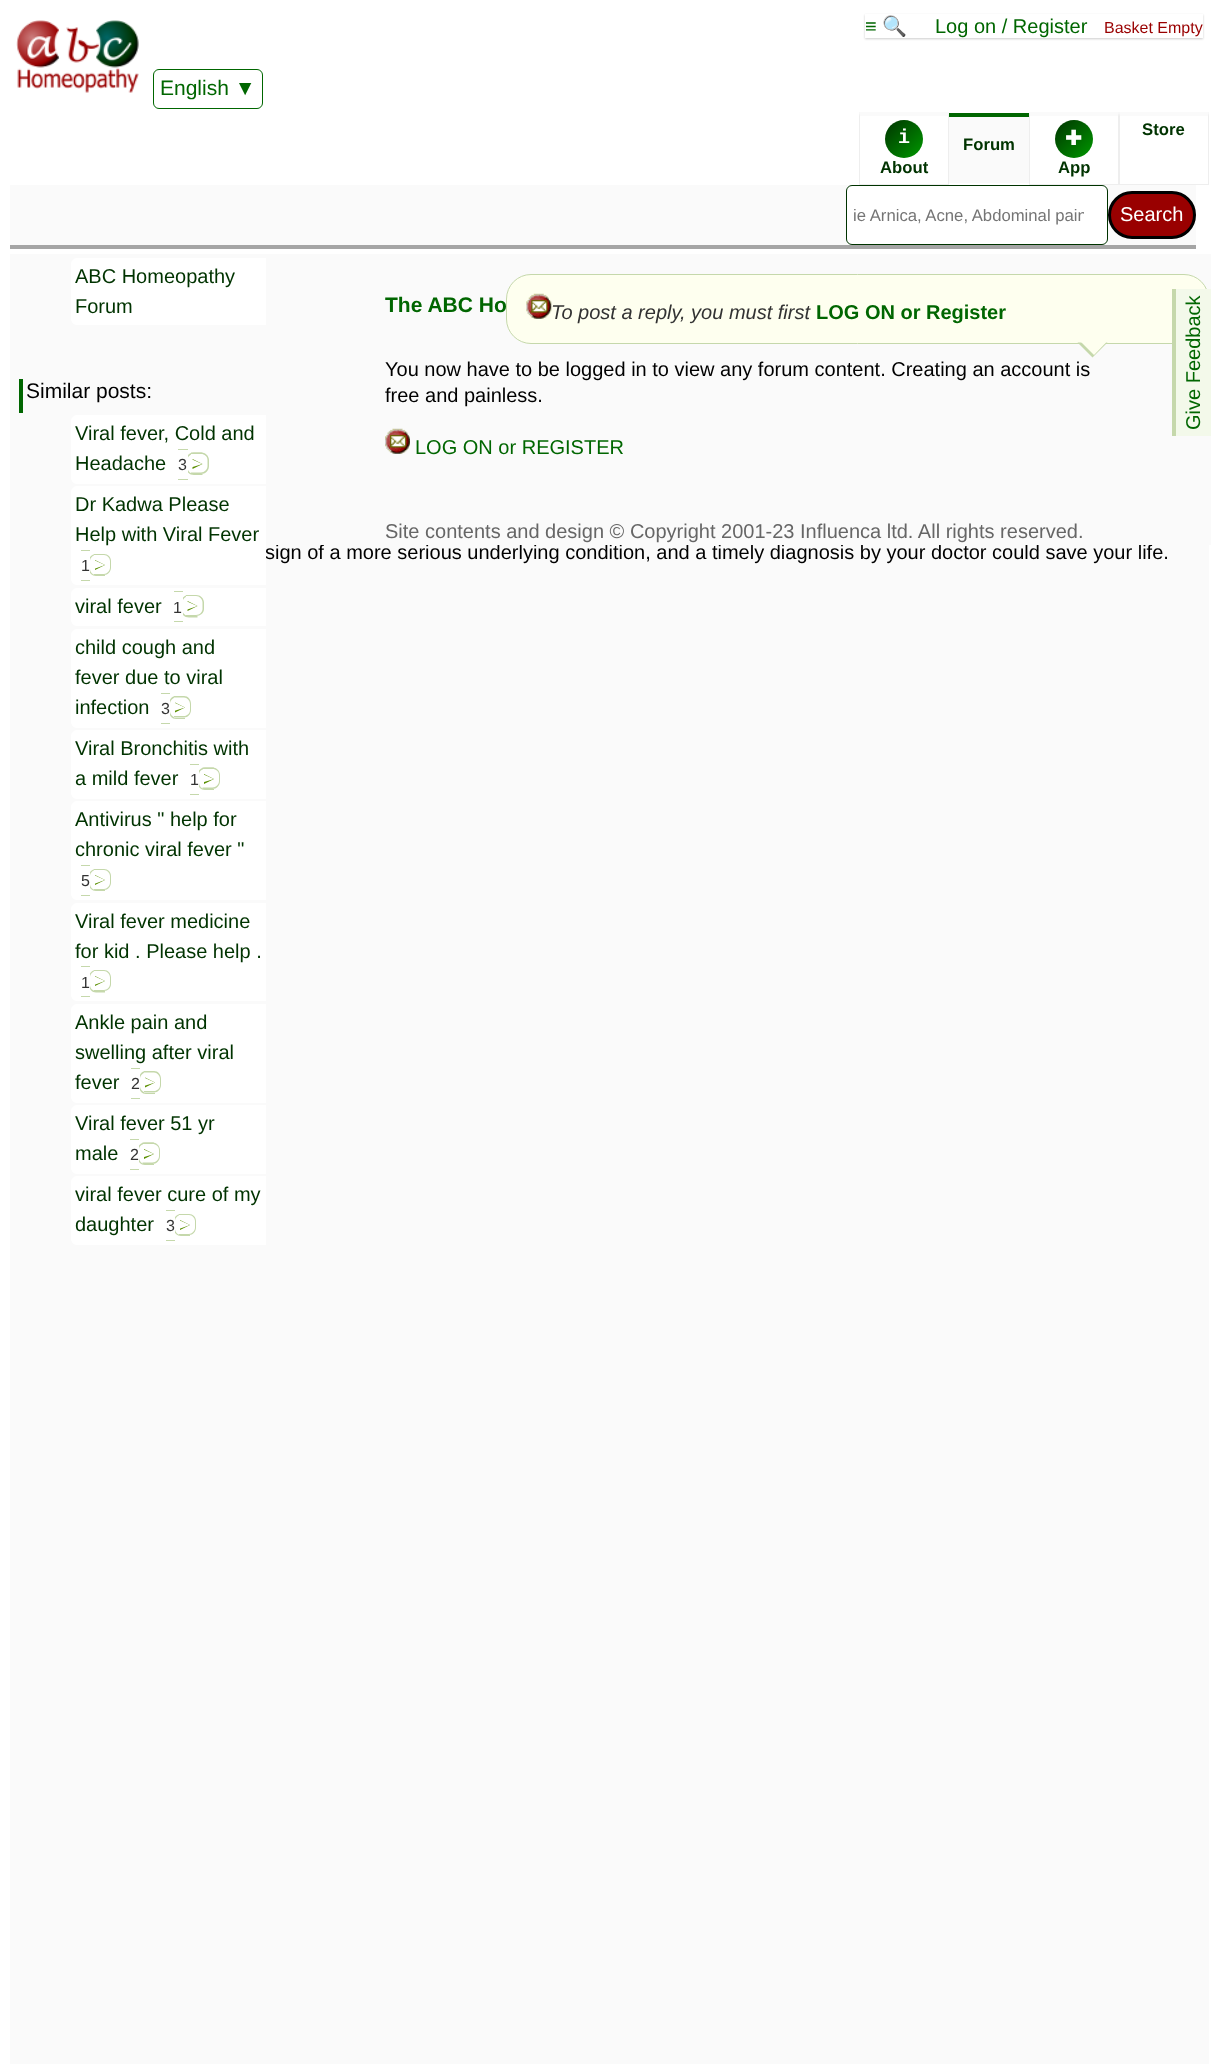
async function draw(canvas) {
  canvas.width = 1211
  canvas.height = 2064
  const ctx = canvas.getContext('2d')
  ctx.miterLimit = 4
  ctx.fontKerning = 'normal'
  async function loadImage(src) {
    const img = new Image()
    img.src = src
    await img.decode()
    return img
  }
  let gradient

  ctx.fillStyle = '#fff'
  ctx.fillRect(0, 0, 1211, 2064)
  ctx.fillStyle = '#00000033'
  ctx.filter = 'blur(1px)'
  ctx.beginPath()
  ctx.rect(865, 15, 338, 24)
  ctx.fill()
  ctx.filter = 'none'
  ctx.fillStyle = '#fff'
  ctx.fillRect(865, 14, 338, 24)
  ctx.font = '20px Liberation Sans'
  ctx.fillStyle = '#060'
  ctx.fillText('≡', 865, 33)
  ctx.font = '20px Noto Color Emoji'
  ctx.fillText('🔍', 882, 33)
  ctx.font = '20px Liberation Sans'
  ctx.fillText('Log on / Register', 935, 33)
  ctx.font = '16px Liberation Sans'
  ctx.fillStyle = '#900'
  ctx.fillText('Basket Empty', 1104, 33)
  ctx.drawImage(await loadImage('image0.png'), 16, 20, 123, 73)
  ctx.beginPath()
  ctx.roundRect(153.5, 69.5, 109, 39, 5.5)
  ctx.strokeStyle = '#060'
  ctx.stroke()
  ctx.font = '21px Liberation Sans'
  ctx.fillStyle = '#060'
  ctx.fillText('English ▼', 160, 95)
  ctx.fillStyle = '#fafafa'
  ctx.beginPath()
  ctx.moveTo(859, 112)
  ctx.lineTo(949, 112)
  ctx.lineTo(948, 116)
  ctx.lineTo(860, 116)
  ctx.closePath()
  ctx.fill()
  ctx.fillStyle = '#eee'
  ctx.beginPath()
  ctx.moveTo(949, 112)
  ctx.lineTo(949, 185)
  ctx.lineTo(948, 184)
  ctx.lineTo(948, 116)
  ctx.closePath()
  ctx.fill()
  ctx.fillRect(859, 184, 90, 1)
  ctx.beginPath()
  ctx.moveTo(859, 185)
  ctx.lineTo(859, 112)
  ctx.lineTo(860, 116)
  ctx.lineTo(860, 184)
  ctx.closePath()
  ctx.fill()
  gradient = ctx.createLinearGradient(885, 120, 923, 158)
  gradient.addColorStop(0, '#030')
  gradient.addColorStop(1, '#090')
  ctx.fillStyle = gradient
  ctx.beginPath()
  ctx.arc(904, 139, 19, 0, 2 * Math.PI)
  ctx.fill()
  ctx.font = 'bold 20px Liberation Mono'
  ctx.fillStyle = '#fff'
  ctx.fillText('i', 898, 143)
  ctx.font = 'bold 16.7px Liberation Sans'
  ctx.fillStyle = '#030'
  ctx.fillText('About', 880, 173)
  ctx.fillStyle = '#fafafa'
  ctx.fillRect(949, 117, 80, 66)
  ctx.fillStyle = '#060'
  ctx.fillRect(949, 113, 80, 4)
  ctx.fillStyle = '#030'
  ctx.fillText('Forum', 963, 150)
  ctx.fillStyle = '#fafafa'
  ctx.beginPath()
  ctx.moveTo(1029, 112)
  ctx.lineTo(1119, 112)
  ctx.lineTo(1118, 116)
  ctx.lineTo(1030, 116)
  ctx.closePath()
  ctx.fill()
  ctx.fillStyle = '#eee'
  ctx.beginPath()
  ctx.moveTo(1119, 112)
  ctx.lineTo(1119, 185)
  ctx.lineTo(1118, 184)
  ctx.lineTo(1118, 116)
  ctx.closePath()
  ctx.fill()
  ctx.fillRect(1029, 184, 90, 1)
  ctx.beginPath()
  ctx.moveTo(1029, 185)
  ctx.lineTo(1029, 112)
  ctx.lineTo(1030, 116)
  ctx.lineTo(1030, 184)
  ctx.closePath()
  ctx.fill()
  gradient = ctx.createLinearGradient(1055, 120, 1093, 158)
  gradient.addColorStop(0, '#030')
  gradient.addColorStop(1, '#090')
  ctx.fillStyle = gradient
  ctx.beginPath()
  ctx.arc(1074, 139, 19, 0, 2 * Math.PI)
  ctx.fill()
  ctx.font = 'bold 20px DejaVu Sans'
  ctx.fillStyle = '#fff'
  ctx.fillText('✚', 1065, 145)
  ctx.font = 'bold 16.7px Liberation Sans'
  ctx.fillStyle = '#030'
  ctx.fillText('App', 1058, 173)
  ctx.fillStyle = '#fafafa'
  ctx.beginPath()
  ctx.moveTo(1119, 112)
  ctx.lineTo(1209, 112)
  ctx.lineTo(1208, 116)
  ctx.lineTo(1120, 116)
  ctx.closePath()
  ctx.fill()
  ctx.fillStyle = '#eee'
  ctx.beginPath()
  ctx.moveTo(1209, 112)
  ctx.lineTo(1209, 185)
  ctx.lineTo(1208, 184)
  ctx.lineTo(1208, 116)
  ctx.closePath()
  ctx.fill()
  ctx.fillRect(1119, 184, 90, 1)
  ctx.beginPath()
  ctx.moveTo(1119, 185)
  ctx.lineTo(1119, 112)
  ctx.lineTo(1120, 116)
  ctx.lineTo(1120, 184)
  ctx.closePath()
  ctx.fill()
  ctx.fillStyle = '#030'
  ctx.fillText('Store', 1142, 135)
  ctx.fillStyle = '#fafafa'
  ctx.fillRect(10, 185, 1186, 60)
  ctx.fillStyle = '#a5a5a5'
  ctx.fillRect(10, 245, 1186, 4)
  ctx.fillStyle = '#fff'
  ctx.beginPath()
  ctx.roundRect(846.5, 185.5, 261, 59, 5.5)
  ctx.fill()
  ctx.strokeStyle = '#030'
  ctx.stroke()
  ctx.save()
  ctx.beginPath()
  ctx.rect(854, 206, 230, 19)
  ctx.clip()
  ctx.font = '16.7px Liberation Sans'
  ctx.fillStyle = '#757575'
  ctx.fillText('ie Arnica, Acne, Abdominal pain', 853, 221)
  ctx.restore()
  ctx.fillStyle = '#900'
  ctx.beginPath()
  ctx.roundRect(1109.5, 192.5, 85, 45, 22.5)
  ctx.fill()
  ctx.strokeStyle = '#000'
  ctx.lineWidth = 3
  ctx.stroke()
  ctx.font = '20px Liberation Sans'
  ctx.fillStyle = '#fff'
  ctx.fillText('Search', 1120, 221)
  ctx.fillStyle = '#fafafa'
  ctx.fillRect(10, 254, 1199, 1810)
  ctx.fillStyle = '#000'
  ctx.fillText('sign of a more serious underlying condition, and a timely diagnosis by your doctor could save your life.', 265, 559)
  ctx.fillStyle = '#fafafa'
  ctx.fillRect(276, 254, 935, 291)
  ctx.fillStyle = '#feffef'
  ctx.beginPath()
  ctx.roundRect(506.5, 274.5, 702, 69, 24.5)
  ctx.fill()
  ctx.strokeStyle = '#c5d8ab'
  ctx.lineWidth = 1
  ctx.stroke()
  ctx.fillStyle = '#f3f9ea'
  ctx.fillRect(1176, 289, 35, 147)
  ctx.fillStyle = '#c5d8ab'
  ctx.fillRect(1172, 289, 4, 147)
  ctx.fillStyle = '#060'
  ctx.save()
  ctx.translate(1200, 430)
  ctx.rotate(-90 * Math.PI / 180)
  ctx.fillText('Give Feedback', 0, 0)
  ctx.restore()
  ctx.fillStyle = '#fff'
  ctx.beginPath()
  ctx.roundRect(71, 258, 195, 67, [6, 0, 0, 6])
  ctx.fill()
  ctx.fillStyle = '#030'
  ctx.fillText('ABC Homeopathy', 75, 283)
  ctx.fillText('Forum', 75, 313)
  ctx.fillStyle = '#060'
  ctx.fillRect(19, 379, 4, 34)
  ctx.font = '21px Liberation Sans'
  ctx.fillStyle = '#000'
  ctx.fillText('Similar posts:', 26, 398)
  ctx.fillStyle = '#fff'
  ctx.beginPath()
  ctx.roundRect(71, 415, 195, 69, [6, 0, 0, 6])
  ctx.fill()
  ctx.font = '20px Liberation Sans'
  ctx.fillStyle = '#030'
  ctx.fillText('Viral fever, Cold and', 75, 440)
  ctx.fillText('Headache', 75, 470)
  ctx.fillStyle = '#c5d8ab'
  ctx.beginPath()
  ctx.moveTo(194, 452.5)
  ctx.lineTo(202.5, 452.5)
  ctx.lineTo(202.5, 475)
  ctx.lineTo(194, 475)
  ctx.bezierCurveTo(189.5, 475, 186, 471.5, 186, 467.5)
  ctx.lineTo(186, 460)
  ctx.bezierCurveTo(186, 456, 189.5, 452.5, 194, 452.5)
  ctx.closePath()
  ctx.moveTo(194, 454)
  ctx.lineTo(202.5, 454)
  ctx.lineTo(202.5, 474)
  ctx.lineTo(194, 474)
  ctx.bezierCurveTo(190.5, 474, 187.5, 471, 187.5, 467.5)
  ctx.lineTo(187.5, 460)
  ctx.bezierCurveTo(187.5, 456.5, 190.5, 454, 194, 454)
  ctx.closePath()
  ctx.fill('evenodd')
  ctx.fillStyle = '#fff'
  ctx.fillRect(186, 455, 2, 18)
  ctx.fillStyle = '#c5d8ab'
  ctx.fillRect(178, 449, 10, 1)
  ctx.fillRect(178, 479, 10, 1)
  ctx.fillStyle = '#fff'
  ctx.beginPath()
  ctx.roundRect(191, 453, 18, 21, [0, 8, 8, 0])
  ctx.fill()
  ctx.fillStyle = '#c5d8ab'
  ctx.beginPath()
  ctx.moveTo(191, 452.5)
  ctx.lineTo(201, 452.5)
  ctx.bezierCurveTo(205.5, 452.5, 209, 456, 209, 460)
  ctx.lineTo(209, 466)
  ctx.bezierCurveTo(209, 470.5, 205.5, 474, 201, 474)
  ctx.lineTo(191, 474)
  ctx.closePath()
  ctx.moveTo(191, 454)
  ctx.lineTo(201, 454)
  ctx.bezierCurveTo(204.5, 454, 207.5, 456.5, 207.5, 460)
  ctx.lineTo(207.5, 466)
  ctx.bezierCurveTo(207.5, 469.5, 204.5, 472.5, 201, 472.5)
  ctx.lineTo(191, 472.5)
  ctx.closePath()
  ctx.fill('evenodd')
  ctx.font = '16px Liberation Sans'
  ctx.fillStyle = '#333'
  ctx.fillText('3', 178, 470)
  ctx.fillStyle = '#5a8f00'
  ctx.beginPath()
  ctx.moveTo(192.5, 469)
  ctx.lineTo(192.5, 459)
  ctx.lineTo(202.5, 464)
  ctx.closePath()
  ctx.fill()
  ctx.fillStyle = '#fff'
  ctx.beginPath()
  ctx.moveTo(191, 467.5)
  ctx.lineTo(191, 459)
  ctx.lineTo(202.5, 464)
  ctx.closePath()
  ctx.fill()
  ctx.beginPath()
  ctx.roundRect(71, 486, 195, 99, [6, 0, 0, 6])
  ctx.fill()
  ctx.font = '20px Liberation Sans'
  ctx.fillStyle = '#030'
  ctx.fillText('Dr Kadwa Please', 75, 511)
  ctx.fillText('Help with Viral Fever', 75, 541)
  ctx.fillStyle = '#c5d8ab'
  ctx.beginPath()
  ctx.moveTo(96, 554)
  ctx.lineTo(105, 554)
  ctx.lineTo(105, 576)
  ctx.lineTo(96, 576)
  ctx.bezierCurveTo(92, 576, 89, 573, 89, 569)
  ctx.lineTo(89, 561)
  ctx.bezierCurveTo(89, 557, 92, 554, 96, 554)
  ctx.closePath()
  ctx.moveTo(96, 555)
  ctx.lineTo(105, 555)
  ctx.lineTo(105, 575)
  ctx.lineTo(96, 575)
  ctx.bezierCurveTo(93, 575, 90, 572, 90, 569)
  ctx.lineTo(90, 561)
  ctx.bezierCurveTo(90, 558, 93, 555, 96, 555)
  ctx.closePath()
  ctx.fill('evenodd')
  ctx.fillStyle = '#fff'
  ctx.fillRect(89, 557, 1, 16)
  ctx.fillStyle = '#c5d8ab'
  ctx.fillRect(81, 550, 9, 1)
  ctx.fillRect(81, 580, 9, 1)
  ctx.fillStyle = '#fff'
  ctx.beginPath()
  ctx.roundRect(94, 554, 17, 21, [0, 8, 8, 0])
  ctx.fill()
  ctx.fillStyle = '#c5d8ab'
  ctx.beginPath()
  ctx.moveTo(94, 554)
  ctx.lineTo(104, 554)
  ctx.bezierCurveTo(108, 554, 111, 557, 111, 561)
  ctx.lineTo(111, 567.5)
  ctx.bezierCurveTo(111, 571.5, 108, 575, 104, 575)
  ctx.lineTo(94, 575)
  ctx.closePath()
  ctx.moveTo(94, 555)
  ctx.lineTo(104, 555)
  ctx.bezierCurveTo(107, 555, 110, 558, 110, 561)
  ctx.lineTo(110, 567.5)
  ctx.bezierCurveTo(110, 571, 107, 574, 104, 574)
  ctx.lineTo(94, 574)
  ctx.closePath()
  ctx.fill('evenodd')
  ctx.font = '16px Liberation Sans'
  ctx.fillStyle = '#333'
  ctx.fillText('1', 81, 571)
  ctx.fillStyle = '#5a8f00'
  ctx.beginPath()
  ctx.moveTo(95, 570)
  ctx.lineTo(95, 560)
  ctx.lineTo(105, 565)
  ctx.closePath()
  ctx.fill()
  ctx.fillStyle = '#fff'
  ctx.beginPath()
  ctx.moveTo(94, 569)
  ctx.lineTo(94, 560)
  ctx.lineTo(105, 565)
  ctx.closePath()
  ctx.fill()
  ctx.beginPath()
  ctx.roundRect(71, 588, 195, 38, [6, 0, 0, 6])
  ctx.fill()
  ctx.font = '20px Liberation Sans'
  ctx.fillStyle = '#030'
  ctx.fillText('viral fever', 75, 613)
  ctx.fillStyle = '#c5d8ab'
  ctx.beginPath()
  ctx.moveTo(189, 595)
  ctx.lineTo(197.5, 595)
  ctx.lineTo(197.5, 617.5)
  ctx.lineTo(189, 617.5)
  ctx.bezierCurveTo(184.5, 617.5, 181, 614, 181, 610)
  ctx.lineTo(181, 602.5)
  ctx.bezierCurveTo(181, 598.5, 184.5, 595, 189, 595)
  ctx.closePath()
  ctx.moveTo(189, 596)
  ctx.lineTo(197.5, 596)
  ctx.lineTo(197.5, 616)
  ctx.lineTo(189, 616)
  ctx.bezierCurveTo(185.5, 616, 182.5, 613.5, 182.5, 610)
  ctx.lineTo(182.5, 602.5)
  ctx.bezierCurveTo(182.5, 599, 185.5, 596, 189, 596)
  ctx.closePath()
  ctx.fill('evenodd')
  ctx.fillStyle = '#fff'
  ctx.fillRect(181, 597, 2, 18)
  ctx.fillStyle = '#c5d8ab'
  ctx.fillRect(174, 591, 9, 1)
  ctx.fillRect(174, 621, 9, 1)
  ctx.fillStyle = '#fff'
  ctx.beginPath()
  ctx.roundRect(186, 595, 18, 21, [0, 8, 8, 0])
  ctx.fill()
  ctx.fillStyle = '#c5d8ab'
  ctx.beginPath()
  ctx.moveTo(186, 595)
  ctx.lineTo(196, 595)
  ctx.bezierCurveTo(200.5, 595, 204, 598.5, 204, 602.5)
  ctx.lineTo(204, 609)
  ctx.bezierCurveTo(204, 613, 200.5, 616, 196, 616)
  ctx.lineTo(186, 616)
  ctx.closePath()
  ctx.moveTo(186, 596)
  ctx.lineTo(196, 596)
  ctx.bezierCurveTo(199.5, 596, 202.5, 599, 202.5, 602.5)
  ctx.lineTo(202.5, 609)
  ctx.bezierCurveTo(202.5, 612, 199.5, 615, 196, 615)
  ctx.lineTo(186, 615)
  ctx.closePath()
  ctx.fill('evenodd')
  ctx.fillStyle = '#5a8f00'
  ctx.beginPath()
  ctx.moveTo(187.5, 611)
  ctx.lineTo(187.5, 601)
  ctx.lineTo(197.5, 606)
  ctx.closePath()
  ctx.fill()
  ctx.fillStyle = '#fff'
  ctx.beginPath()
  ctx.moveTo(186, 610)
  ctx.lineTo(186, 601)
  ctx.lineTo(197.5, 606)
  ctx.closePath()
  ctx.fill()
  ctx.font = '16px Liberation Sans'
  ctx.fillStyle = '#333'
  ctx.fillText('1', 173, 613)
  ctx.fillStyle = '#fff'
  ctx.beginPath()
  ctx.roundRect(71, 629, 195, 99, [6, 0, 0, 6])
  ctx.fill()
  ctx.font = '20px Liberation Sans'
  ctx.fillStyle = '#030'
  ctx.fillText('child cough and', 75, 654)
  ctx.fillText('fever due to viral', 75, 684)
  ctx.fillText('infection', 75, 714)
  ctx.fillStyle = '#c5d8ab'
  ctx.beginPath()
  ctx.moveTo(176, 696)
  ctx.lineTo(185, 696)
  ctx.lineTo(185, 719)
  ctx.lineTo(176, 719)
  ctx.bezierCurveTo(172, 719, 169, 715.5, 169, 711)
  ctx.lineTo(169, 704)
  ctx.bezierCurveTo(169, 699.5, 172, 696, 176, 696)
  ctx.closePath()
  ctx.moveTo(176, 697.5)
  ctx.lineTo(185, 697.5)
  ctx.lineTo(185, 717.5)
  ctx.lineTo(176, 717.5)
  ctx.bezierCurveTo(173, 717.5, 170, 714.5, 170, 711)
  ctx.lineTo(170, 704)
  ctx.bezierCurveTo(170, 700.5, 173, 697.5, 176, 697.5)
  ctx.closePath()
  ctx.fill('evenodd')
  ctx.fillStyle = '#fff'
  ctx.fillRect(169, 700, 1, 15)
  ctx.fillStyle = '#c5d8ab'
  ctx.fillRect(161, 693, 9, 1)
  ctx.fillRect(161, 723, 9, 1)
  ctx.fillStyle = '#fff'
  ctx.beginPath()
  ctx.roundRect(174, 696, 17, 22, [0, 8, 8, 0])
  ctx.fill()
  ctx.fillStyle = '#c5d8ab'
  ctx.beginPath()
  ctx.moveTo(174, 696)
  ctx.lineTo(184, 696)
  ctx.bezierCurveTo(188, 696, 191, 699.5, 191, 704)
  ctx.lineTo(191, 710)
  ctx.bezierCurveTo(191, 714, 188, 717.5, 184, 717.5)
  ctx.lineTo(174, 717.5)
  ctx.closePath()
  ctx.moveTo(174, 697.5)
  ctx.lineTo(184, 697.5)
  ctx.bezierCurveTo(187, 697.5, 190, 700.5, 190, 704)
  ctx.lineTo(190, 710)
  ctx.bezierCurveTo(190, 713.5, 187, 716, 184, 716)
  ctx.lineTo(174, 716)
  ctx.closePath()
  ctx.fill('evenodd')
  ctx.font = '16px Liberation Sans'
  ctx.fillStyle = '#333'
  ctx.fillText('3', 161, 714)
  ctx.fillStyle = '#5a8f00'
  ctx.beginPath()
  ctx.moveTo(175, 712.5)
  ctx.lineTo(175, 702.5)
  ctx.lineTo(185, 707.5)
  ctx.closePath()
  ctx.fill()
  ctx.fillStyle = '#fff'
  ctx.beginPath()
  ctx.moveTo(174, 711)
  ctx.lineTo(174, 702.5)
  ctx.lineTo(185, 707.5)
  ctx.closePath()
  ctx.fill()
  ctx.beginPath()
  ctx.roundRect(71, 730, 195, 69, [6, 0, 0, 6])
  ctx.fill()
  ctx.font = '20px Liberation Sans'
  ctx.fillStyle = '#030'
  ctx.fillText('Viral Bronchitis with', 75, 755)
  ctx.fillText('a mild fever', 75, 785)
  ctx.fillStyle = '#c5d8ab'
  ctx.beginPath()
  ctx.moveTo(205, 767.5)
  ctx.lineTo(214, 767.5)
  ctx.lineTo(214, 790)
  ctx.lineTo(205, 790)
  ctx.bezierCurveTo(201, 790, 197.5, 786.5, 197.5, 782.5)
  ctx.lineTo(197.5, 775)
  ctx.bezierCurveTo(197.5, 771, 201, 767.5, 205, 767.5)
  ctx.closePath()
  ctx.moveTo(205, 769)
  ctx.lineTo(214, 769)
  ctx.lineTo(214, 789)
  ctx.lineTo(205, 789)
  ctx.bezierCurveTo(201.5, 789, 199, 786, 199, 782.5)
  ctx.lineTo(199, 775)
  ctx.bezierCurveTo(199, 771.5, 201.5, 769, 205, 769)
  ctx.closePath()
  ctx.fill('evenodd')
  ctx.fillStyle = '#fff'
  ctx.fillRect(197, 770, 2, 17)
  ctx.fillStyle = '#c5d8ab'
  ctx.fillRect(190, 764, 9, 1)
  ctx.fillRect(190, 794, 9, 1)
  ctx.fillStyle = '#fff'
  ctx.beginPath()
  ctx.roundRect(203, 768, 17, 21, [0, 8, 8, 0])
  ctx.fill()
  ctx.fillStyle = '#c5d8ab'
  ctx.beginPath()
  ctx.moveTo(202.5, 767.5)
  ctx.lineTo(212.5, 767.5)
  ctx.bezierCurveTo(216.5, 767.5, 220, 771, 220, 775)
  ctx.lineTo(220, 781)
  ctx.bezierCurveTo(220, 785.5, 216.5, 789, 212.5, 789)
  ctx.lineTo(202.5, 789)
  ctx.closePath()
  ctx.moveTo(202.5, 769)
  ctx.lineTo(212.5, 769)
  ctx.bezierCurveTo(216, 769, 219, 771.5, 219, 775)
  ctx.lineTo(219, 781)
  ctx.bezierCurveTo(219, 784.5, 216, 787.5, 212.5, 787.5)
  ctx.lineTo(202.5, 787.5)
  ctx.closePath()
  ctx.fill('evenodd')
  ctx.font = '16px Liberation Sans'
  ctx.fillStyle = '#333'
  ctx.fillText('1', 190, 785)
  ctx.fillStyle = '#5a8f00'
  ctx.beginPath()
  ctx.moveTo(204, 784)
  ctx.lineTo(204, 774)
  ctx.lineTo(214, 779)
  ctx.closePath()
  ctx.fill()
  ctx.fillStyle = '#fff'
  ctx.beginPath()
  ctx.moveTo(202.5, 782.5)
  ctx.lineTo(202.5, 774)
  ctx.lineTo(214, 779)
  ctx.closePath()
  ctx.fill()
  ctx.beginPath()
  ctx.roundRect(71, 801, 195, 99, [6, 0, 0, 6])
  ctx.fill()
  ctx.font = '20px Liberation Sans'
  ctx.fillStyle = '#030'
  ctx.fillText('Antivirus " help for', 75, 826)
  ctx.fillText('chronic viral fever "', 75, 856)
  ctx.fillStyle = '#c5d8ab'
  ctx.beginPath()
  ctx.moveTo(96, 869)
  ctx.lineTo(105, 869)
  ctx.lineTo(105, 891)
  ctx.lineTo(96, 891)
  ctx.bezierCurveTo(92, 891, 89, 888, 89, 884)
  ctx.lineTo(89, 876)
  ctx.bezierCurveTo(89, 872, 92, 869, 96, 869)
  ctx.closePath()
  ctx.moveTo(96, 870)
  ctx.lineTo(105, 870)
  ctx.lineTo(105, 890)
  ctx.lineTo(96, 890)
  ctx.bezierCurveTo(93, 890, 90, 887, 90, 884)
  ctx.lineTo(90, 876)
  ctx.bezierCurveTo(90, 873, 93, 870, 96, 870)
  ctx.closePath()
  ctx.fill('evenodd')
  ctx.fillStyle = '#fff'
  ctx.fillRect(89, 872, 1, 16)
  ctx.fillStyle = '#c5d8ab'
  ctx.fillRect(81, 865, 9, 1)
  ctx.fillRect(81, 895, 9, 1)
  ctx.fillStyle = '#fff'
  ctx.beginPath()
  ctx.roundRect(94, 869, 17, 21, [0, 8, 8, 0])
  ctx.fill()
  ctx.fillStyle = '#c5d8ab'
  ctx.beginPath()
  ctx.moveTo(94, 869)
  ctx.lineTo(104, 869)
  ctx.bezierCurveTo(108, 869, 111, 872, 111, 876)
  ctx.lineTo(111, 882.5)
  ctx.bezierCurveTo(111, 886.5, 108, 890, 104, 890)
  ctx.lineTo(94, 890)
  ctx.closePath()
  ctx.moveTo(94, 870)
  ctx.lineTo(104, 870)
  ctx.bezierCurveTo(107, 870, 110, 873, 110, 876)
  ctx.lineTo(110, 882.5)
  ctx.bezierCurveTo(110, 886, 107, 889, 104, 889)
  ctx.lineTo(94, 889)
  ctx.closePath()
  ctx.fill('evenodd')
  ctx.font = '16px Liberation Sans'
  ctx.fillStyle = '#333'
  ctx.fillText('5', 81, 886)
  ctx.fillStyle = '#5a8f00'
  ctx.beginPath()
  ctx.moveTo(95, 885)
  ctx.lineTo(95, 875)
  ctx.lineTo(105, 880)
  ctx.closePath()
  ctx.fill()
  ctx.fillStyle = '#fff'
  ctx.beginPath()
  ctx.moveTo(94, 884)
  ctx.lineTo(94, 875)
  ctx.lineTo(105, 880)
  ctx.closePath()
  ctx.fill()
  ctx.beginPath()
  ctx.roundRect(71, 903, 195, 98, [6, 0, 0, 6])
  ctx.fill()
  ctx.font = '20px Liberation Sans'
  ctx.fillStyle = '#030'
  ctx.fillText('Viral fever medicine', 75, 928)
  ctx.fillText('for kid . Please help .', 75, 958)
  ctx.fillStyle = '#c5d8ab'
  ctx.beginPath()
  ctx.moveTo(96, 970)
  ctx.lineTo(105, 970)
  ctx.lineTo(105, 992.5)
  ctx.lineTo(96, 992.5)
  ctx.bezierCurveTo(92, 992.5, 89, 989, 89, 985)
  ctx.lineTo(89, 977.5)
  ctx.bezierCurveTo(89, 973.5, 92, 970, 96, 970)
  ctx.closePath()
  ctx.moveTo(96, 971)
  ctx.lineTo(105, 971)
  ctx.lineTo(105, 991)
  ctx.lineTo(96, 991)
  ctx.bezierCurveTo(93, 991, 90, 988.5, 90, 985)
  ctx.lineTo(90, 977.5)
  ctx.bezierCurveTo(90, 974, 93, 971, 96, 971)
  ctx.closePath()
  ctx.fill('evenodd')
  ctx.fillStyle = '#fff'
  ctx.fillRect(89, 974, 1, 15)
  ctx.fillStyle = '#c5d8ab'
  ctx.fillRect(81, 966, 9, 1)
  ctx.fillRect(81, 996, 9, 1)
  ctx.fillStyle = '#fff'
  ctx.beginPath()
  ctx.roundRect(94, 970, 17, 21, [0, 8, 8, 0])
  ctx.fill()
  ctx.fillStyle = '#c5d8ab'
  ctx.beginPath()
  ctx.moveTo(94, 970)
  ctx.lineTo(104, 970)
  ctx.bezierCurveTo(108, 970, 111, 973.5, 111, 977.5)
  ctx.lineTo(111, 984)
  ctx.bezierCurveTo(111, 988, 108, 991, 104, 991)
  ctx.lineTo(94, 991)
  ctx.closePath()
  ctx.moveTo(94, 971)
  ctx.lineTo(104, 971)
  ctx.bezierCurveTo(107, 971, 110, 974, 110, 977.5)
  ctx.lineTo(110, 984)
  ctx.bezierCurveTo(110, 987, 107, 990, 104, 990)
  ctx.lineTo(94, 990)
  ctx.closePath()
  ctx.fill('evenodd')
  ctx.fillStyle = '#5a8f00'
  ctx.beginPath()
  ctx.moveTo(95, 986)
  ctx.lineTo(95, 976)
  ctx.lineTo(105, 981)
  ctx.closePath()
  ctx.fill()
  ctx.fillStyle = '#fff'
  ctx.beginPath()
  ctx.moveTo(94, 985)
  ctx.lineTo(94, 976)
  ctx.lineTo(105, 981)
  ctx.closePath()
  ctx.fill()
  ctx.font = '16px Liberation Sans'
  ctx.fillStyle = '#333'
  ctx.fillText('1', 81, 988)
  ctx.fillStyle = '#fff'
  ctx.beginPath()
  ctx.roundRect(71, 1004, 195, 99, [6, 0, 0, 6])
  ctx.fill()
  ctx.font = '20px Liberation Sans'
  ctx.fillStyle = '#030'
  ctx.fillText('Ankle pain and', 75, 1029)
  ctx.fillText('swelling after viral', 75, 1059)
  ctx.fillText('fever', 75, 1089)
  ctx.fillStyle = '#c5d8ab'
  ctx.beginPath()
  ctx.moveTo(146, 1071)
  ctx.lineTo(155, 1071)
  ctx.lineTo(155, 1094)
  ctx.lineTo(146, 1094)
  ctx.bezierCurveTo(142, 1094, 139, 1090.5, 139, 1086)
  ctx.lineTo(139, 1079)
  ctx.bezierCurveTo(139, 1074.5, 142, 1071, 146, 1071)
  ctx.closePath()
  ctx.moveTo(146, 1072.5)
  ctx.lineTo(155, 1072.5)
  ctx.lineTo(155, 1092.5)
  ctx.lineTo(146, 1092.5)
  ctx.bezierCurveTo(143, 1092.5, 140, 1089.5, 140, 1086)
  ctx.lineTo(140, 1079)
  ctx.bezierCurveTo(140, 1075.5, 143, 1072.5, 146, 1072.5)
  ctx.closePath()
  ctx.fill('evenodd')
  ctx.fillStyle = '#fff'
  ctx.fillRect(139, 1075, 1, 15)
  ctx.fillStyle = '#c5d8ab'
  ctx.fillRect(131, 1068, 9, 1)
  ctx.fillRect(131, 1098, 9, 1)
  ctx.fillStyle = '#fff'
  ctx.beginPath()
  ctx.roundRect(144, 1071, 17, 22, [0, 8, 8, 0])
  ctx.fill()
  ctx.fillStyle = '#c5d8ab'
  ctx.beginPath()
  ctx.moveTo(144, 1071)
  ctx.lineTo(154, 1071)
  ctx.bezierCurveTo(158, 1071, 161, 1074.5, 161, 1079)
  ctx.lineTo(161, 1085)
  ctx.bezierCurveTo(161, 1089, 158, 1092.5, 154, 1092.5)
  ctx.lineTo(144, 1092.5)
  ctx.closePath()
  ctx.moveTo(144, 1072.5)
  ctx.lineTo(154, 1072.5)
  ctx.bezierCurveTo(157, 1072.5, 160, 1075.5, 160, 1079)
  ctx.lineTo(160, 1085)
  ctx.bezierCurveTo(160, 1088.5, 157, 1091, 154, 1091)
  ctx.lineTo(144, 1091)
  ctx.closePath()
  ctx.fill('evenodd')
  ctx.font = '16px Liberation Sans'
  ctx.fillStyle = '#333'
  ctx.fillText('2', 131, 1089)
  ctx.fillStyle = '#5a8f00'
  ctx.beginPath()
  ctx.moveTo(145, 1087.5)
  ctx.lineTo(145, 1077.5)
  ctx.lineTo(155, 1082.5)
  ctx.closePath()
  ctx.fill()
  ctx.fillStyle = '#fff'
  ctx.beginPath()
  ctx.moveTo(144, 1086)
  ctx.lineTo(144, 1077.5)
  ctx.lineTo(155, 1082.5)
  ctx.closePath()
  ctx.fill()
  ctx.beginPath()
  ctx.roundRect(71, 1105, 195, 69, [6, 0, 0, 6])
  ctx.fill()
  ctx.font = '20px Liberation Sans'
  ctx.fillStyle = '#030'
  ctx.fillText('Viral fever 51 yr', 75, 1130)
  ctx.fillText('male', 75, 1160)
  ctx.fillStyle = '#c5d8ab'
  ctx.beginPath()
  ctx.moveTo(145, 1142.5)
  ctx.lineTo(154, 1142.5)
  ctx.lineTo(154, 1165)
  ctx.lineTo(145, 1165)
  ctx.bezierCurveTo(141, 1165, 137.5, 1161.5, 137.5, 1157.5)
  ctx.lineTo(137.5, 1150)
  ctx.bezierCurveTo(137.5, 1146, 141, 1142.5, 145, 1142.5)
  ctx.closePath()
  ctx.moveTo(145, 1144)
  ctx.lineTo(154, 1144)
  ctx.lineTo(154, 1164)
  ctx.lineTo(145, 1164)
  ctx.bezierCurveTo(141.5, 1164, 139, 1161, 139, 1157.5)
  ctx.lineTo(139, 1150)
  ctx.bezierCurveTo(139, 1146.5, 141.5, 1144, 145, 1144)
  ctx.closePath()
  ctx.fill('evenodd')
  ctx.fillStyle = '#fff'
  ctx.fillRect(137, 1145, 2, 17)
  ctx.fillStyle = '#c5d8ab'
  ctx.fillRect(130, 1139, 9, 1)
  ctx.fillRect(130, 1169, 9, 1)
  ctx.fillStyle = '#fff'
  ctx.beginPath()
  ctx.roundRect(143, 1143, 17, 21, [0, 8, 8, 0])
  ctx.fill()
  ctx.fillStyle = '#c5d8ab'
  ctx.beginPath()
  ctx.moveTo(142.5, 1142.5)
  ctx.lineTo(152.5, 1142.5)
  ctx.bezierCurveTo(156.5, 1142.5, 160, 1146, 160, 1150)
  ctx.lineTo(160, 1156)
  ctx.bezierCurveTo(160, 1160.5, 156.5, 1164, 152.5, 1164)
  ctx.lineTo(142.5, 1164)
  ctx.closePath()
  ctx.moveTo(142.5, 1144)
  ctx.lineTo(152.5, 1144)
  ctx.bezierCurveTo(156, 1144, 159, 1146.5, 159, 1150)
  ctx.lineTo(159, 1156)
  ctx.bezierCurveTo(159, 1159.5, 156, 1162.5, 152.5, 1162.5)
  ctx.lineTo(142.5, 1162.5)
  ctx.closePath()
  ctx.fill('evenodd')
  ctx.font = '16px Liberation Sans'
  ctx.fillStyle = '#333'
  ctx.fillText('2', 130, 1160)
  ctx.fillStyle = '#5a8f00'
  ctx.beginPath()
  ctx.moveTo(144, 1159)
  ctx.lineTo(144, 1149)
  ctx.lineTo(154, 1154)
  ctx.closePath()
  ctx.fill()
  ctx.fillStyle = '#fff'
  ctx.beginPath()
  ctx.moveTo(142.5, 1157.5)
  ctx.lineTo(142.5, 1149)
  ctx.lineTo(154, 1154)
  ctx.closePath()
  ctx.fill()
  ctx.beginPath()
  ctx.roundRect(71, 1176, 195, 69, [6, 0, 0, 6])
  ctx.fill()
  ctx.font = '20px Liberation Sans'
  ctx.fillStyle = '#030'
  ctx.fillText('viral fever cure of my', 75, 1201)
  ctx.fillText('daughter', 75, 1231)
  ctx.fillStyle = '#c5d8ab'
  ctx.beginPath()
  ctx.moveTo(181, 1214)
  ctx.lineTo(190, 1214)
  ctx.lineTo(190, 1236)
  ctx.lineTo(181, 1236)
  ctx.bezierCurveTo(177, 1236, 174, 1233, 174, 1229)
  ctx.lineTo(174, 1221)
  ctx.bezierCurveTo(174, 1217, 177, 1214, 181, 1214)
  ctx.closePath()
  ctx.moveTo(181, 1215)
  ctx.lineTo(190, 1215)
  ctx.lineTo(190, 1235)
  ctx.lineTo(181, 1235)
  ctx.bezierCurveTo(178, 1235, 175, 1232, 175, 1229)
  ctx.lineTo(175, 1221)
  ctx.bezierCurveTo(175, 1218, 178, 1215, 181, 1215)
  ctx.closePath()
  ctx.fill('evenodd')
  ctx.fillStyle = '#fff'
  ctx.fillRect(174, 1217, 1, 16)
  ctx.fillStyle = '#c5d8ab'
  ctx.fillRect(166, 1210, 9, 1)
  ctx.fillRect(166, 1240, 9, 1)
  ctx.fillStyle = '#fff'
  ctx.beginPath()
  ctx.roundRect(179, 1214, 17, 21, [0, 8, 8, 0])
  ctx.fill()
  ctx.fillStyle = '#c5d8ab'
  ctx.beginPath()
  ctx.moveTo(179, 1214)
  ctx.lineTo(189, 1214)
  ctx.bezierCurveTo(193, 1214, 196, 1217, 196, 1221)
  ctx.lineTo(196, 1227.5)
  ctx.bezierCurveTo(196, 1231.5, 193, 1235, 189, 1235)
  ctx.lineTo(179, 1235)
  ctx.closePath()
  ctx.moveTo(179, 1215)
  ctx.lineTo(189, 1215)
  ctx.bezierCurveTo(192, 1215, 195, 1218, 195, 1221)
  ctx.lineTo(195, 1227.5)
  ctx.bezierCurveTo(195, 1231, 192, 1234, 189, 1234)
  ctx.lineTo(179, 1234)
  ctx.closePath()
  ctx.fill('evenodd')
  ctx.font = '16px Liberation Sans'
  ctx.fillStyle = '#333'
  ctx.fillText('3', 166, 1231)
  ctx.fillStyle = '#5a8f00'
  ctx.beginPath()
  ctx.moveTo(180, 1230)
  ctx.lineTo(180, 1220)
  ctx.lineTo(190, 1225)
  ctx.closePath()
  ctx.fill()
  ctx.fillStyle = '#fff'
  ctx.beginPath()
  ctx.moveTo(179, 1229)
  ctx.lineTo(179, 1220)
  ctx.lineTo(190, 1225)
  ctx.closePath()
  ctx.fill()
  ctx.font = 'bold 21px Liberation Sans'
  ctx.fillStyle = '#060'
  ctx.fillText('The ABC Ho', 385, 312)
  ctx.font = '20px Liberation Sans'
  ctx.fillStyle = '#000'
  ctx.fillText('You now have to be logged in to view any forum content. Creating an account is', 385, 376)
  ctx.fillText('free and painless.', 385, 402)
  ctx.drawImage(await loadImage('image1.png'), 385, 428, 25, 26)
  ctx.fillStyle = '#060'
  ctx.fillText('LOG ON or REGISTER', 415, 454)
  ctx.fillStyle = '#666'
  ctx.fillText('Site contents and design © Copyright 2001-23 Influenca ltd. All rights reserved.', 385, 538)
  ctx.drawImage(await loadImage('image2.png'), 526, 293, 26, 26)
  ctx.font = 'italic 20px Liberation Sans'
  ctx.fillStyle = '#333'
  ctx.fillText('To post a reply, you must first', 551, 319)
  ctx.font = 'bold 20px Liberation Sans'
  ctx.fillStyle = '#060'
  ctx.fillText('LOG ON or Register', 816, 319)
  ctx.fillStyle = '#c5d8ab'
  ctx.beginPath()
  ctx.moveTo(1077.5, 342.5)
  ctx.lineTo(1107.5, 342.5)
  ctx.lineTo(1092.5, 357.5)
  ctx.closePath()
  ctx.fill()
  ctx.fillStyle = '#feffef'
  ctx.beginPath()
  ctx.moveTo(1080, 341)
  ctx.lineTo(1107.5, 341)
  ctx.lineTo(1094, 355)
  ctx.closePath()
  ctx.fill()
}

draw(document.querySelector('canvas'))
